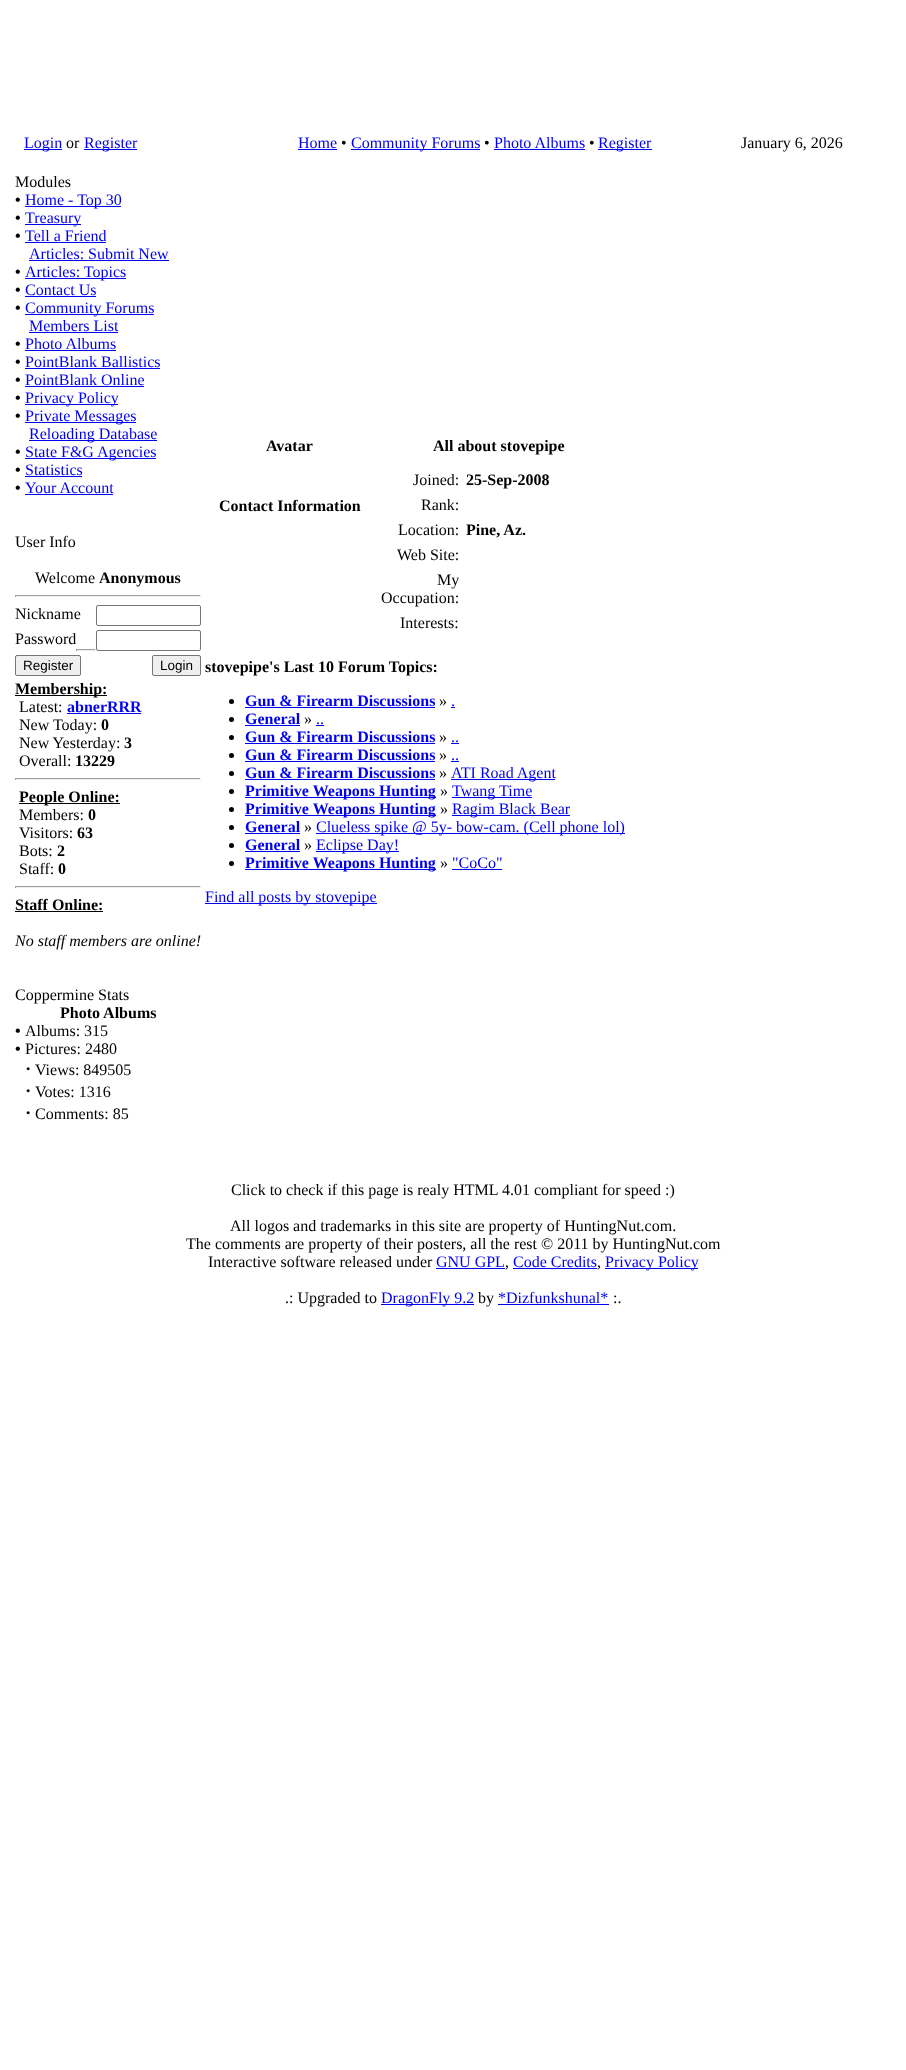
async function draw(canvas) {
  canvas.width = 906
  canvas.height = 2070
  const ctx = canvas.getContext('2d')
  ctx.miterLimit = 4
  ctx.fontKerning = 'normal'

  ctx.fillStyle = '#fff'
  ctx.fillRect(0, 0, 906, 2070)
  ctx.fillStyle = '#00e'
  ctx.fillRect(24, 149, 38, 1)
  ctx.font = '16px Liberation Serif'
  ctx.fillText('Login', 24, 148)
  ctx.fillStyle = '#000'
  ctx.fillText('or', 66, 148)
  ctx.fillStyle = '#00e'
  ctx.fillRect(84, 149, 53, 1)
  ctx.fillText('Register', 84, 148)
  ctx.fillText('Home', 298, 148)
  ctx.fillRect(298, 149, 39, 1)
  ctx.fillStyle = '#000'
  ctx.fillText('•', 341, 148)
  ctx.fillStyle = '#00e'
  ctx.fillRect(351, 149, 129, 1)
  ctx.fillText('Community Forums', 351, 148)
  ctx.fillStyle = '#000'
  ctx.fillText('•', 484, 148)
  ctx.fillStyle = '#00e'
  ctx.fillText('Photo Albums', 494, 148)
  ctx.fillRect(494, 149, 91, 1)
  ctx.fillStyle = '#000'
  ctx.fillText('•', 589, 148)
  ctx.fillStyle = '#00e'
  ctx.fillRect(598, 149, 54, 1)
  ctx.fillText('Register', 598, 148)
  ctx.fillStyle = '#000'
  ctx.fillText('January 6, 2026', 741, 148)
  ctx.fillText('Modules', 15, 187)
  ctx.font = 'bold 16px Liberation Serif'
  ctx.fillText('•', 15, 205)
  ctx.fillStyle = '#00e'
  ctx.fillRect(25, 206, 96, 1)
  ctx.font = '16px Liberation Serif'
  ctx.fillText('Home - Top 30', 25, 205)
  ctx.font = 'bold 16px Liberation Serif'
  ctx.fillStyle = '#000'
  ctx.fillText('•', 15, 223)
  ctx.fillStyle = '#00e'
  ctx.fillRect(25, 224, 56, 1)
  ctx.font = '16px Liberation Serif'
  ctx.fillText('Treasury', 25, 223)
  ctx.font = 'bold 16px Liberation Serif'
  ctx.fillStyle = '#000'
  ctx.fillText('•', 15, 241)
  ctx.font = '16px Liberation Serif'
  ctx.fillStyle = '#00e'
  ctx.fillText('Tell a Friend', 25, 241)
  ctx.fillRect(25, 242, 81, 1)
  ctx.fillText('Articles: Submit New', 29, 259)
  ctx.fillRect(29, 260, 140, 1)
  ctx.font = 'bold 16px Liberation Serif'
  ctx.fillStyle = '#000'
  ctx.fillText('•', 15, 277)
  ctx.fillStyle = '#00e'
  ctx.fillRect(25, 278, 101, 1)
  ctx.font = '16px Liberation Serif'
  ctx.fillText('Articles: Topics', 25, 277)
  ctx.font = 'bold 16px Liberation Serif'
  ctx.fillStyle = '#000'
  ctx.fillText('•', 15, 295)
  ctx.font = '16px Liberation Serif'
  ctx.fillStyle = '#00e'
  ctx.fillText('Contact Us', 25, 295)
  ctx.fillRect(25, 296, 71, 1)
  ctx.font = 'bold 16px Liberation Serif'
  ctx.fillStyle = '#000'
  ctx.fillText('•', 15, 313)
  ctx.fillStyle = '#00e'
  ctx.fillRect(25, 314, 129, 1)
  ctx.font = '16px Liberation Serif'
  ctx.fillText('Community Forums', 25, 313)
  ctx.fillText('Members List', 29, 331)
  ctx.fillRect(29, 332, 89, 1)
  ctx.font = 'bold 16px Liberation Serif'
  ctx.fillStyle = '#000'
  ctx.fillText('•', 15, 349)
  ctx.font = '16px Liberation Serif'
  ctx.fillStyle = '#00e'
  ctx.fillText('Photo Albums', 25, 349)
  ctx.fillRect(25, 350, 91, 1)
  ctx.font = 'bold 16px Liberation Serif'
  ctx.fillStyle = '#000'
  ctx.fillText('•', 15, 367)
  ctx.font = '16px Liberation Serif'
  ctx.fillStyle = '#00e'
  ctx.fillText('PointBlank Ballistics', 25, 367)
  ctx.fillRect(25, 368, 135, 1)
  ctx.font = 'bold 16px Liberation Serif'
  ctx.fillStyle = '#000'
  ctx.fillText('•', 15, 385)
  ctx.font = '16px Liberation Serif'
  ctx.fillStyle = '#00e'
  ctx.fillText('PointBlank Online', 25, 385)
  ctx.fillRect(25, 386, 119, 1)
  ctx.font = 'bold 16px Liberation Serif'
  ctx.fillStyle = '#000'
  ctx.fillText('•', 15, 403)
  ctx.fillStyle = '#00e'
  ctx.fillRect(25, 404, 93, 1)
  ctx.font = '16px Liberation Serif'
  ctx.fillText('Privacy Policy', 25, 403)
  ctx.font = 'bold 16px Liberation Serif'
  ctx.fillStyle = '#000'
  ctx.fillText('•', 15, 421)
  ctx.fillStyle = '#00e'
  ctx.fillRect(25, 422, 111, 1)
  ctx.font = '16px Liberation Serif'
  ctx.fillText('Private Messages', 25, 421)
  ctx.fillRect(29, 440, 128, 1)
  ctx.fillText('Reloading Database', 29, 439)
  ctx.font = 'bold 16px Liberation Serif'
  ctx.fillStyle = '#000'
  ctx.fillText('•', 15, 457)
  ctx.fillStyle = '#00e'
  ctx.fillRect(25, 458, 131, 1)
  ctx.font = '16px Liberation Serif'
  ctx.fillText('State F&G Agencies', 25, 457)
  ctx.font = 'bold 16px Liberation Serif'
  ctx.fillStyle = '#000'
  ctx.fillText('•', 15, 475)
  ctx.font = '16px Liberation Serif'
  ctx.fillStyle = '#00e'
  ctx.fillText('Statistics', 25, 475)
  ctx.fillRect(25, 476, 57, 1)
  ctx.font = 'bold 16px Liberation Serif'
  ctx.fillStyle = '#000'
  ctx.fillText('•', 15, 493)
  ctx.font = '16px Liberation Serif'
  ctx.fillStyle = '#00e'
  ctx.fillText('Your Account', 25, 493)
  ctx.fillRect(25, 494, 88, 1)
  ctx.fillStyle = '#000'
  ctx.fillText('User Info', 15, 547)
  ctx.fillText('Welcome', 35, 583)
  ctx.font = 'bold 16px Liberation Serif'
  ctx.fillText('Anonymous', 99, 583)
  ctx.fillStyle = '#9f9f9f'
  ctx.fillRect(15, 595, 186, 1)
  ctx.fillStyle = '#eee'
  ctx.fillRect(200, 595, 1, 2)
  ctx.fillRect(15, 596, 186, 1)
  ctx.fillStyle = '#9f9f9f'
  ctx.fillRect(15, 595, 1, 2)
  ctx.font = '16px Liberation Serif'
  ctx.fillStyle = '#000'
  ctx.fillText('Nickname', 15, 619)
  ctx.beginPath()
  ctx.roundRect(96.5, 605.5, 104, 20, 1.5)
  ctx.strokeStyle = '#767676'
  ctx.stroke()
  ctx.fillText('Password', 15, 644)
  ctx.beginPath()
  ctx.roundRect(96.5, 630.5, 104, 20, 1.5)
  ctx.stroke()
  ctx.fillStyle = '#efefef'
  ctx.beginPath()
  ctx.roundRect(15.5, 655.5, 65, 20, 1.5)
  ctx.fill()
  ctx.stroke()
  ctx.font = '13.5px Liberation Sans'
  ctx.fillStyle = '#000'
  ctx.fillText('Register', 23, 670)
  ctx.fillStyle = '#efefef'
  ctx.beginPath()
  ctx.roundRect(152.5, 655.5, 48, 20, 1.5)
  ctx.fill()
  ctx.stroke()
  ctx.fillStyle = '#000'
  ctx.fillText('Login', 160, 670)
  ctx.fillStyle = '#9f9f9f'
  ctx.fillRect(76, 649, 20, 1)
  ctx.fillStyle = '#eee'
  ctx.fillRect(95, 649, 1, 2)
  ctx.fillRect(76, 650, 20, 1)
  ctx.fillStyle = '#9f9f9f'
  ctx.fillRect(76, 649, 1, 2)
  ctx.fillStyle = '#000'
  ctx.fillRect(15, 695, 92, 1)
  ctx.font = 'bold 16px Liberation Serif'
  ctx.fillText('Membership:', 15, 694)
  ctx.font = '16px Liberation Serif'
  ctx.fillText('Latest:', 19, 712)
  ctx.font = 'bold 16px Liberation Serif'
  ctx.fillStyle = '#00e'
  ctx.fillText('abnerRRR', 67, 712)
  ctx.fillRect(67, 713, 74, 1)
  ctx.font = '16px Liberation Serif'
  ctx.fillStyle = '#000'
  ctx.fillText('New Today:', 19, 730)
  ctx.font = 'bold 16px Liberation Serif'
  ctx.fillText('0', 101, 730)
  ctx.font = '16px Liberation Serif'
  ctx.fillText('New Yesterday:', 19, 748)
  ctx.font = 'bold 16px Liberation Serif'
  ctx.fillText('3', 124, 748)
  ctx.font = '16px Liberation Serif'
  ctx.fillText('Overall:', 19, 766)
  ctx.font = 'bold 16px Liberation Serif'
  ctx.fillText('13229', 75, 766)
  ctx.fillStyle = '#9f9f9f'
  ctx.fillRect(15, 778, 186, 1)
  ctx.fillStyle = '#eee'
  ctx.fillRect(200, 778, 1, 2)
  ctx.fillRect(15, 779, 186, 1)
  ctx.fillStyle = '#9f9f9f'
  ctx.fillRect(15, 778, 1, 2)
  ctx.fillStyle = '#000'
  ctx.fillRect(19, 803, 101, 1)
  ctx.fillText('People Online:', 19, 802)
  ctx.font = '16px Liberation Serif'
  ctx.fillText('Members:', 19, 820)
  ctx.font = 'bold 16px Liberation Serif'
  ctx.fillText('0', 88, 820)
  ctx.font = '16px Liberation Serif'
  ctx.fillText('Visitors:', 19, 838)
  ctx.font = 'bold 16px Liberation Serif'
  ctx.fillText('63', 77, 838)
  ctx.font = '16px Liberation Serif'
  ctx.fillText('Bots:', 19, 856)
  ctx.font = 'bold 16px Liberation Serif'
  ctx.fillText('2', 57, 856)
  ctx.font = '16px Liberation Serif'
  ctx.fillText('Staff:', 19, 874)
  ctx.font = 'bold 16px Liberation Serif'
  ctx.fillText('0', 58, 874)
  ctx.fillStyle = '#9f9f9f'
  ctx.fillRect(15, 886, 186, 1)
  ctx.fillStyle = '#eee'
  ctx.fillRect(200, 886, 1, 2)
  ctx.fillRect(15, 887, 186, 1)
  ctx.fillStyle = '#9f9f9f'
  ctx.fillRect(15, 886, 1, 2)
  ctx.fillStyle = '#000'
  ctx.fillText('Staff Online:', 15, 910)
  ctx.fillRect(15, 911, 88, 1)
  ctx.font = 'italic 16px Liberation Serif'
  ctx.fillText('No staff members are online!', 15, 946)
  ctx.font = '16px Liberation Serif'
  ctx.fillText('Coppermine Stats', 15, 1000)
  ctx.font = 'bold 16px Liberation Serif'
  ctx.fillText('Photo Albums', 60, 1018)
  ctx.fillText('•', 15, 1036)
  ctx.font = '16px Liberation Serif'
  ctx.fillText('Albums: 315', 25, 1036)
  ctx.font = 'bold 16px Liberation Serif'
  ctx.fillText('•', 15, 1054)
  ctx.font = '16px Liberation Serif'
  ctx.fillText('Pictures: 2480', 25, 1054)
  ctx.font = 'bold 19px Liberation Serif'
  ctx.fillText('·', 25, 1075)
  ctx.font = '16px Liberation Serif'
  ctx.fillText('Views: 849505', 35, 1075)
  ctx.font = 'bold 19px Liberation Serif'
  ctx.fillText('·', 25, 1097)
  ctx.font = '16px Liberation Serif'
  ctx.fillText('Votes: 1316', 35, 1097)
  ctx.font = 'bold 19px Liberation Serif'
  ctx.fillText('·', 25, 1119)
  ctx.font = '16px Liberation Serif'
  ctx.fillText('Comments: 85', 35, 1119)
  ctx.font = 'bold 16px Liberation Serif'
  ctx.fillText('Avatar', 266, 451)
  ctx.fillText('All about stovepipe', 433, 451)
  ctx.fillText('Contact Information', 219, 511)
  ctx.font = '16px Liberation Serif'
  ctx.fillText('Joined:', 413, 485)
  ctx.font = 'bold 16px Liberation Serif'
  ctx.fillText('25-Sep-2008', 466, 485)
  ctx.font = '16px Liberation Serif'
  ctx.fillText('Rank:', 421, 510)
  ctx.fillText('Location:', 398, 535)
  ctx.font = 'bold 16px Liberation Serif'
  ctx.fillText('Pine, Az.', 466, 535)
  ctx.font = '16px Liberation Serif'
  ctx.fillText('Web Site:', 397, 560)
  ctx.fillText('My', 437, 585)
  ctx.fillText('Occupation:', 381, 603)
  ctx.fillText('Interests:', 400, 628)
  ctx.font = 'bold 16px Liberation Serif'
  ctx.fillText('stovepipe\'s Last 10 Forum Topics:', 205, 672)
  ctx.beginPath()
  ctx.arc(231.5, 701.5, 2.5, 0, 2 * Math.PI)
  ctx.fill()
  ctx.fillStyle = '#00e'
  ctx.fillText('Gun & Firearm Discussions', 245, 706)
  ctx.fillRect(245, 707, 190, 1)
  ctx.font = '16px Liberation Serif'
  ctx.fillStyle = '#000'
  ctx.fillText('»', 439, 706)
  ctx.fillStyle = '#00e'
  ctx.fillText('.', 451, 706)
  ctx.fillRect(451, 707, 4, 1)
  ctx.fillStyle = '#000'
  ctx.beginPath()
  ctx.arc(231.5, 719.5, 2.5, 0, 2 * Math.PI)
  ctx.fill()
  ctx.font = 'bold 16px Liberation Serif'
  ctx.fillStyle = '#00e'
  ctx.fillText('General', 245, 724)
  ctx.fillRect(245, 725, 55, 1)
  ctx.font = '16px Liberation Serif'
  ctx.fillStyle = '#000'
  ctx.fillText('»', 304, 724)
  ctx.fillStyle = '#00e'
  ctx.fillText('..', 316, 724)
  ctx.fillRect(316, 725, 8, 1)
  ctx.fillStyle = '#000'
  ctx.beginPath()
  ctx.arc(231.5, 737.5, 2.5, 0, 2 * Math.PI)
  ctx.fill()
  ctx.font = 'bold 16px Liberation Serif'
  ctx.fillStyle = '#00e'
  ctx.fillText('Gun & Firearm Discussions', 245, 742)
  ctx.fillRect(245, 743, 190, 1)
  ctx.font = '16px Liberation Serif'
  ctx.fillStyle = '#000'
  ctx.fillText('»', 439, 742)
  ctx.fillStyle = '#00e'
  ctx.fillText('..', 451, 742)
  ctx.fillRect(451, 743, 8, 1)
  ctx.fillStyle = '#000'
  ctx.beginPath()
  ctx.arc(231.5, 755.5, 2.5, 0, 2 * Math.PI)
  ctx.fill()
  ctx.font = 'bold 16px Liberation Serif'
  ctx.fillStyle = '#00e'
  ctx.fillText('Gun & Firearm Discussions', 245, 760)
  ctx.fillRect(245, 761, 190, 1)
  ctx.font = '16px Liberation Serif'
  ctx.fillStyle = '#000'
  ctx.fillText('»', 439, 760)
  ctx.fillStyle = '#00e'
  ctx.fillText('..', 451, 760)
  ctx.fillRect(451, 761, 8, 1)
  ctx.fillStyle = '#000'
  ctx.beginPath()
  ctx.arc(231.5, 773.5, 2.5, 0, 2 * Math.PI)
  ctx.fill()
  ctx.font = 'bold 16px Liberation Serif'
  ctx.fillStyle = '#00e'
  ctx.fillText('Gun & Firearm Discussions', 245, 778)
  ctx.fillRect(245, 779, 190, 1)
  ctx.font = '16px Liberation Serif'
  ctx.fillStyle = '#000'
  ctx.fillText('»', 439, 778)
  ctx.fillStyle = '#00e'
  ctx.fillRect(451, 779, 104, 1)
  ctx.fillText('ATI Road Agent', 451, 778)
  ctx.fillStyle = '#000'
  ctx.beginPath()
  ctx.arc(231.5, 791.5, 2.5, 0, 2 * Math.PI)
  ctx.fill()
  ctx.fillStyle = '#00e'
  ctx.fillRect(245, 797, 191, 1)
  ctx.font = 'bold 16px Liberation Serif'
  ctx.fillText('Primitive Weapons Hunting', 245, 796)
  ctx.font = '16px Liberation Serif'
  ctx.fillStyle = '#000'
  ctx.fillText('»', 440, 796)
  ctx.fillStyle = '#00e'
  ctx.fillRect(452, 797, 80, 1)
  ctx.fillText('Twang Time', 452, 796)
  ctx.fillStyle = '#000'
  ctx.beginPath()
  ctx.arc(231.5, 809.5, 2.5, 0, 2 * Math.PI)
  ctx.fill()
  ctx.fillStyle = '#00e'
  ctx.fillRect(245, 815, 191, 1)
  ctx.font = 'bold 16px Liberation Serif'
  ctx.fillText('Primitive Weapons Hunting', 245, 814)
  ctx.font = '16px Liberation Serif'
  ctx.fillStyle = '#000'
  ctx.fillText('»', 440, 814)
  ctx.fillStyle = '#00e'
  ctx.fillRect(452, 815, 118, 1)
  ctx.fillText('Ragim Black Bear', 452, 814)
  ctx.fillStyle = '#000'
  ctx.beginPath()
  ctx.arc(231.5, 827.5, 2.5, 0, 2 * Math.PI)
  ctx.fill()
  ctx.font = 'bold 16px Liberation Serif'
  ctx.fillStyle = '#00e'
  ctx.fillText('General', 245, 832)
  ctx.fillRect(245, 833, 55, 1)
  ctx.font = '16px Liberation Serif'
  ctx.fillStyle = '#000'
  ctx.fillText('»', 304, 832)
  ctx.fillStyle = '#00e'
  ctx.fillRect(316, 833, 309, 1)
  ctx.fillText('Clueless spike @ 5y- bow-cam. (Cell phone lol)', 316, 832)
  ctx.fillStyle = '#000'
  ctx.beginPath()
  ctx.arc(231.5, 845.5, 2.5, 0, 2 * Math.PI)
  ctx.fill()
  ctx.font = 'bold 16px Liberation Serif'
  ctx.fillStyle = '#00e'
  ctx.fillText('General', 245, 850)
  ctx.fillRect(245, 851, 55, 1)
  ctx.font = '16px Liberation Serif'
  ctx.fillStyle = '#000'
  ctx.fillText('»', 304, 850)
  ctx.fillStyle = '#00e'
  ctx.fillRect(316, 851, 83, 1)
  ctx.fillText('Eclipse Day!', 316, 850)
  ctx.fillStyle = '#000'
  ctx.beginPath()
  ctx.arc(231.5, 863.5, 2.5, 0, 2 * Math.PI)
  ctx.fill()
  ctx.fillStyle = '#00e'
  ctx.fillRect(245, 869, 191, 1)
  ctx.font = 'bold 16px Liberation Serif'
  ctx.fillText('Primitive Weapons Hunting', 245, 868)
  ctx.font = '16px Liberation Serif'
  ctx.fillStyle = '#000'
  ctx.fillText('»', 440, 868)
  ctx.fillStyle = '#00e'
  ctx.fillText('"CoCo"', 452, 868)
  ctx.fillRect(452, 869, 50, 1)
  ctx.fillRect(205, 903, 172, 1)
  ctx.fillText('Find all posts by stovepipe', 205, 902)
  ctx.fillStyle = '#000'
  ctx.fillText('Click to check if this page is realy HTML 4.01 compliant for speed :)', 231, 1195)
  ctx.fillText('All logos and trademarks in this site are property of HuntingNut.com.', 230, 1231)
  ctx.fillText('The comments are property of their posters, all the rest © 2011 by HuntingNut.com', 186, 1249)
  ctx.fillText('Interactive software released under', 208, 1267)
  ctx.fillStyle = '#00e'
  ctx.fillText('GNU GPL', 436, 1267)
  ctx.fillRect(436, 1268, 69, 1)
  ctx.fillStyle = '#000'
  ctx.fillText(',', 505, 1267)
  ctx.fillStyle = '#00e'
  ctx.fillText('Code Credits', 513, 1267)
  ctx.fillRect(513, 1268, 84, 1)
  ctx.fillStyle = '#000'
  ctx.fillText(',', 597, 1267)
  ctx.fillStyle = '#00e'
  ctx.fillRect(605, 1268, 93, 1)
  ctx.fillText('Privacy Policy', 605, 1267)
  ctx.fillStyle = '#000'
  ctx.fillText('.: Upgraded to', 285, 1303)
  ctx.fillStyle = '#00e'
  ctx.fillRect(381, 1304, 93, 1)
  ctx.fillText('DragonFly 9.2', 381, 1303)
  ctx.fillStyle = '#000'
  ctx.fillText('by', 478, 1303)
  ctx.fillStyle = '#00e'
  ctx.fillText('*Dizfunkshunal*', 498, 1303)
  ctx.fillRect(498, 1304, 111, 1)
  ctx.fillStyle = '#000'
  ctx.fillText(':.', 613, 1303)
}

draw(document.querySelector('canvas'))
